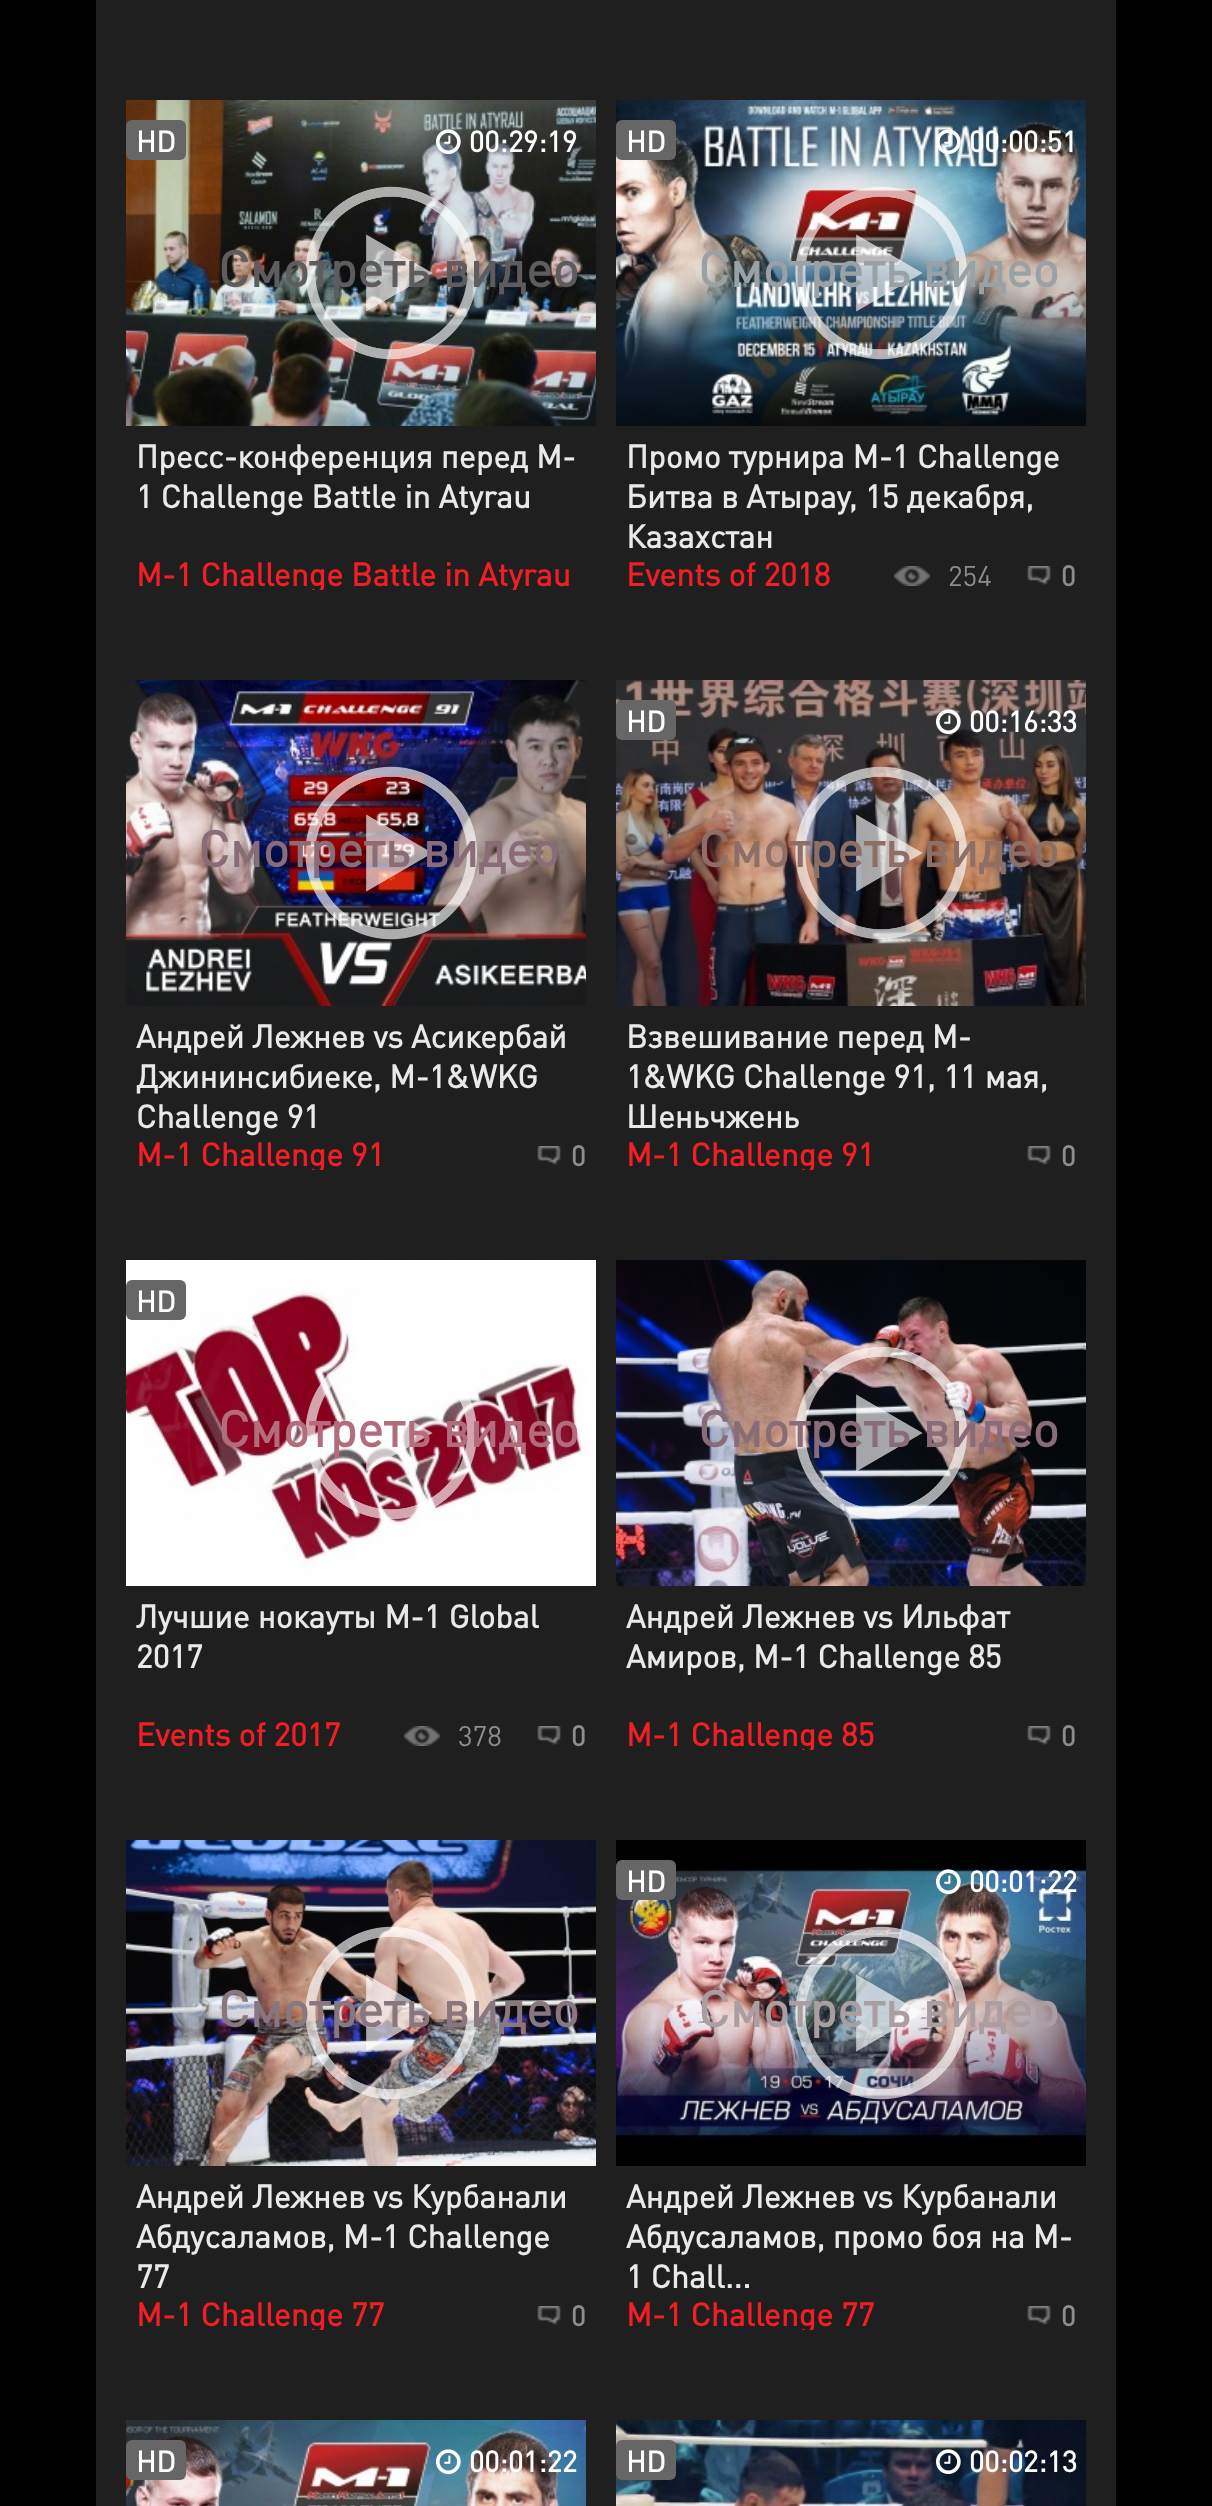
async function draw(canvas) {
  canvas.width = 1212
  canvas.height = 2506
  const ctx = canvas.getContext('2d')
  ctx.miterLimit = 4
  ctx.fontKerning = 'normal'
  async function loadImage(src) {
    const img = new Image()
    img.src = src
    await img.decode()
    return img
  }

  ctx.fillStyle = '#000'
  ctx.fillRect(0, 0, 1212, 2506)
  ctx.fillStyle = '#1f1f1f'
  ctx.fillRect(96, 0, 1020, 2506)
  ctx.drawImage(await loadImage('image0.png'), 126, 100, 470, 326)
  ctx.drawImage(await loadImage('image1.png'), 305, 186, 172, 174)
  ctx.fillStyle = '#666'
  ctx.beginPath()
  ctx.roundRect(126, 120, 60, 40, 6)
  ctx.fill()
  ctx.font = 'bold 29px DIN'
  ctx.fillStyle = '#fff'
  ctx.fillText('HD', 136, 152)
  ctx.drawImage(await loadImage('image2.png'), 436, 129, 25, 26)
  ctx.fillText('00:29:19', 469, 152)
  ctx.font = 'bold 50px DIN'
  ctx.fillStyle = '#5e5c5d'
  ctx.fillText('Смотреть видео', 218, 287)
  ctx.font = 'bold 32px DIN'
  ctx.fillStyle = '#e9e9e9'
  ctx.fillText('Пресс-конференция перед M-', 136, 468)
  ctx.fillText('1 Challenge Battle in Atyrau', 136, 508)
  ctx.save()
  ctx.beginPath()
  ctx.rect(136, 554, 434, 36)
  ctx.clip()
  ctx.fillStyle = '#f11f25'
  ctx.fillText('M-1 Challenge Battle in Atyrau', 136, 586)
  ctx.restore()
  ctx.drawImage(await loadImage('image3.png'), 616, 100, 470, 326)
  ctx.drawImage(await loadImage('image4.png'), 795, 186, 172, 174)
  ctx.fillStyle = '#666'
  ctx.beginPath()
  ctx.roundRect(616, 120, 60, 40, 6)
  ctx.fill()
  ctx.font = 'bold 29px DIN'
  ctx.fillStyle = '#fff'
  ctx.fillText('HD', 626, 152)
  ctx.drawImage(await loadImage('image5.png'), 936, 129, 25, 25)
  ctx.fillText('00:00:51', 969, 152)
  ctx.font = 'bold 50px DIN'
  ctx.fillStyle = '#9aa1a4'
  ctx.fillText('Смотреть видео', 698, 287)
  ctx.font = 'bold 32px DIN'
  ctx.fillStyle = '#e9e9e9'
  ctx.fillText('Промо турнира M-1 Challenge', 626, 468)
  ctx.fillText('Битва в Атырау, 15 декабря,', 626, 508)
  ctx.fillText('Казахстан', 626, 548)
  ctx.fillStyle = '#f11f25'
  ctx.fillText('Events of 2018', 626, 586)
  ctx.drawImage(await loadImage('image6.png'), 894, 566, 36, 20)
  ctx.font = '28px DIN'
  ctx.fillStyle = '#8d8d8d'
  ctx.fillText('254', 948, 586)
  ctx.drawImage(await loadImage('image7.png'), 1027, 566, 24, 19)
  ctx.font = 'bold 28px DIN'
  ctx.fillText('0', 1061, 586)
  ctx.drawImage(await loadImage('image8.png'), 126, 680, 460, 326)
  ctx.drawImage(await loadImage('image9.png'), 305, 766, 172, 174)
  ctx.font = 'bold 50px DIN'
  ctx.fillStyle = '#886c77'
  ctx.fillText('Смотреть видео', 198, 867)
  ctx.font = 'bold 32px DIN'
  ctx.fillStyle = '#e9e9e9'
  ctx.fillText('Андрей Лежнев vs Асикербай', 136, 1048)
  ctx.fillText('Джининсибиеке, M-1&WKG', 136, 1088)
  ctx.fillText('Challenge 91', 136, 1128)
  ctx.save()
  ctx.beginPath()
  ctx.rect(136, 1134, 248, 36)
  ctx.clip()
  ctx.fillStyle = '#f11f25'
  ctx.fillText('M-1 Challenge 91', 136, 1166)
  ctx.restore()
  ctx.drawImage(await loadImage('image7.png'), 537, 1146, 24, 19)
  ctx.font = 'bold 28px DIN'
  ctx.fillStyle = '#8d8d8d'
  ctx.fillText('0', 571, 1166)
  ctx.drawImage(await loadImage('image10.png'), 616, 680, 470, 326)
  ctx.drawImage(await loadImage('image11.png'), 795, 766, 172, 174)
  ctx.fillStyle = '#666'
  ctx.beginPath()
  ctx.roundRect(616, 700, 60, 40, 6)
  ctx.fill()
  ctx.font = 'bold 29px DIN'
  ctx.fillStyle = '#fff'
  ctx.fillText('HD', 626, 732)
  ctx.drawImage(await loadImage('image12.png'), 936, 709, 25, 26)
  ctx.fillText('00:16:33', 969, 732)
  ctx.font = 'bold 50px DIN'
  ctx.fillStyle = '#8d6f66'
  ctx.fillText('Смотреть видео', 698, 867)
  ctx.font = 'bold 32px DIN'
  ctx.fillStyle = '#e9e9e9'
  ctx.fillText('Взвешивание перед M-', 626, 1048)
  ctx.fillText('1&WKG Challenge 91, 11 мая,', 626, 1088)
  ctx.fillText('Шеньчжень', 626, 1128)
  ctx.save()
  ctx.beginPath()
  ctx.rect(626, 1134, 248, 36)
  ctx.clip()
  ctx.fillStyle = '#f11f25'
  ctx.fillText('M-1 Challenge 91', 626, 1166)
  ctx.restore()
  ctx.drawImage(await loadImage('image7.png'), 1027, 1146, 24, 19)
  ctx.font = 'bold 28px DIN'
  ctx.fillStyle = '#8d8d8d'
  ctx.fillText('0', 1061, 1166)
  ctx.drawImage(await loadImage('image13.png'), 126, 1260, 470, 326)
  ctx.drawImage(await loadImage('image14.png'), 305, 1360, 172, 160)
  ctx.fillStyle = '#666'
  ctx.beginPath()
  ctx.roundRect(126, 1280, 60, 40, 6)
  ctx.fill()
  ctx.font = 'bold 29px DIN'
  ctx.fillStyle = '#fff'
  ctx.fillText('HD', 136, 1312)
  ctx.font = 'bold 50px DIN'
  ctx.fillStyle = '#b46c7d'
  ctx.fillText('Смотреть видео', 218, 1447)
  ctx.font = 'bold 32px DIN'
  ctx.fillStyle = '#e9e9e9'
  ctx.fillText('Лучшие нокауты M-1 Global', 136, 1628)
  ctx.fillText('2017', 136, 1668)
  ctx.fillStyle = '#f11f25'
  ctx.fillText('Events of 2017', 136, 1746)
  ctx.drawImage(await loadImage('image6.png'), 404, 1726, 36, 20)
  ctx.font = '28px DIN'
  ctx.fillStyle = '#8d8d8d'
  ctx.fillText('378', 458, 1746)
  ctx.drawImage(await loadImage('image7.png'), 537, 1726, 24, 19)
  ctx.font = 'bold 28px DIN'
  ctx.fillText('0', 571, 1746)
  ctx.drawImage(await loadImage('image15.png'), 616, 1260, 470, 326)
  ctx.drawImage(await loadImage('image16.png'), 795, 1346, 172, 174)
  ctx.font = 'bold 50px DIN'
  ctx.fillStyle = '#886c77'
  ctx.fillText('Смотреть видео', 698, 1447)
  ctx.font = 'bold 32px DIN'
  ctx.fillStyle = '#e9e9e9'
  ctx.fillText('Андрей Лежнев vs Ильфат', 626, 1628)
  ctx.fillText('Амиров, M-1 Challenge 85', 626, 1668)
  ctx.save()
  ctx.beginPath()
  ctx.rect(626, 1714, 248, 36)
  ctx.clip()
  ctx.fillStyle = '#f11f25'
  ctx.fillText('M-1 Challenge 85', 626, 1746)
  ctx.restore()
  ctx.drawImage(await loadImage('image7.png'), 1027, 1726, 24, 19)
  ctx.font = 'bold 28px DIN'
  ctx.fillStyle = '#8d8d8d'
  ctx.fillText('0', 1061, 1746)
  ctx.drawImage(await loadImage('image17.png'), 126, 1840, 470, 326)
  ctx.drawImage(await loadImage('image18.png'), 305, 1926, 172, 174)
  ctx.font = 'bold 50px DIN'
  ctx.fillStyle = '#88777f'
  ctx.fillText('Смотреть видео', 218, 2027)
  ctx.font = 'bold 32px DIN'
  ctx.fillStyle = '#e9e9e9'
  ctx.fillText('Андрей Лежнев vs Курбанали', 136, 2208)
  ctx.fillText('Абдусаламов, M-1 Challenge', 136, 2248)
  ctx.fillText('77', 136, 2288)
  ctx.save()
  ctx.beginPath()
  ctx.rect(136, 2294, 248, 36)
  ctx.clip()
  ctx.fillStyle = '#f11f25'
  ctx.fillText('M-1 Challenge 77', 136, 2326)
  ctx.restore()
  ctx.drawImage(await loadImage('image7.png'), 537, 2306, 24, 19)
  ctx.font = 'bold 28px DIN'
  ctx.fillStyle = '#8d8d8d'
  ctx.fillText('0', 571, 2326)
  ctx.drawImage(await loadImage('image19.png'), 616, 1840, 470, 326)
  ctx.drawImage(await loadImage('image20.png'), 795, 1926, 172, 174)
  ctx.fillStyle = '#666'
  ctx.beginPath()
  ctx.roundRect(616, 1860, 60, 40, 6)
  ctx.fill()
  ctx.font = 'bold 29px DIN'
  ctx.fillStyle = '#fff'
  ctx.fillText('HD', 626, 1892)
  ctx.drawImage(await loadImage('image21.png'), 936, 1869, 25, 26)
  ctx.fillText('00:01:22', 969, 1892)
  ctx.font = 'bold 50px DIN'
  ctx.fillStyle = '#aa9ea0'
  ctx.fillText('Смотреть видео', 698, 2027)
  ctx.font = 'bold 32px DIN'
  ctx.fillStyle = '#e9e9e9'
  ctx.fillText('Андрей Лежнев vs Курбанали', 626, 2208)
  ctx.fillText('Абдусаламов, промо боя на M-', 626, 2248)
  ctx.fillText('1 Chall...', 626, 2288)
  ctx.save()
  ctx.beginPath()
  ctx.rect(626, 2294, 248, 36)
  ctx.clip()
  ctx.fillStyle = '#f11f25'
  ctx.fillText('M-1 Challenge 77', 626, 2326)
  ctx.restore()
  ctx.drawImage(await loadImage('image7.png'), 1027, 2306, 24, 19)
  ctx.font = 'bold 28px DIN'
  ctx.fillStyle = '#8d8d8d'
  ctx.fillText('0', 1061, 2326)
  ctx.drawImage(await loadImage('image22.png'), 126, 2420, 460, 86)
  ctx.fillStyle = '#666'
  ctx.beginPath()
  ctx.roundRect(126, 2440, 60, 40, 6)
  ctx.fill()
  ctx.font = 'bold 29px DIN'
  ctx.fillStyle = '#fff'
  ctx.fillText('HD', 136, 2472)
  ctx.drawImage(await loadImage('image23.png'), 436, 2449, 25, 26)
  ctx.fillText('00:01:22', 469, 2472)
  ctx.drawImage(await loadImage('image24.png'), 616, 2420, 470, 86)
  ctx.fillStyle = '#666'
  ctx.beginPath()
  ctx.roundRect(616, 2440, 60, 40, 6)
  ctx.fill()
  ctx.fillStyle = '#fff'
  ctx.fillText('HD', 626, 2472)
  ctx.drawImage(await loadImage('image25.png'), 936, 2449, 25, 26)
  ctx.fillText('00:02:13', 969, 2472)
}

draw(document.querySelector('canvas'))
